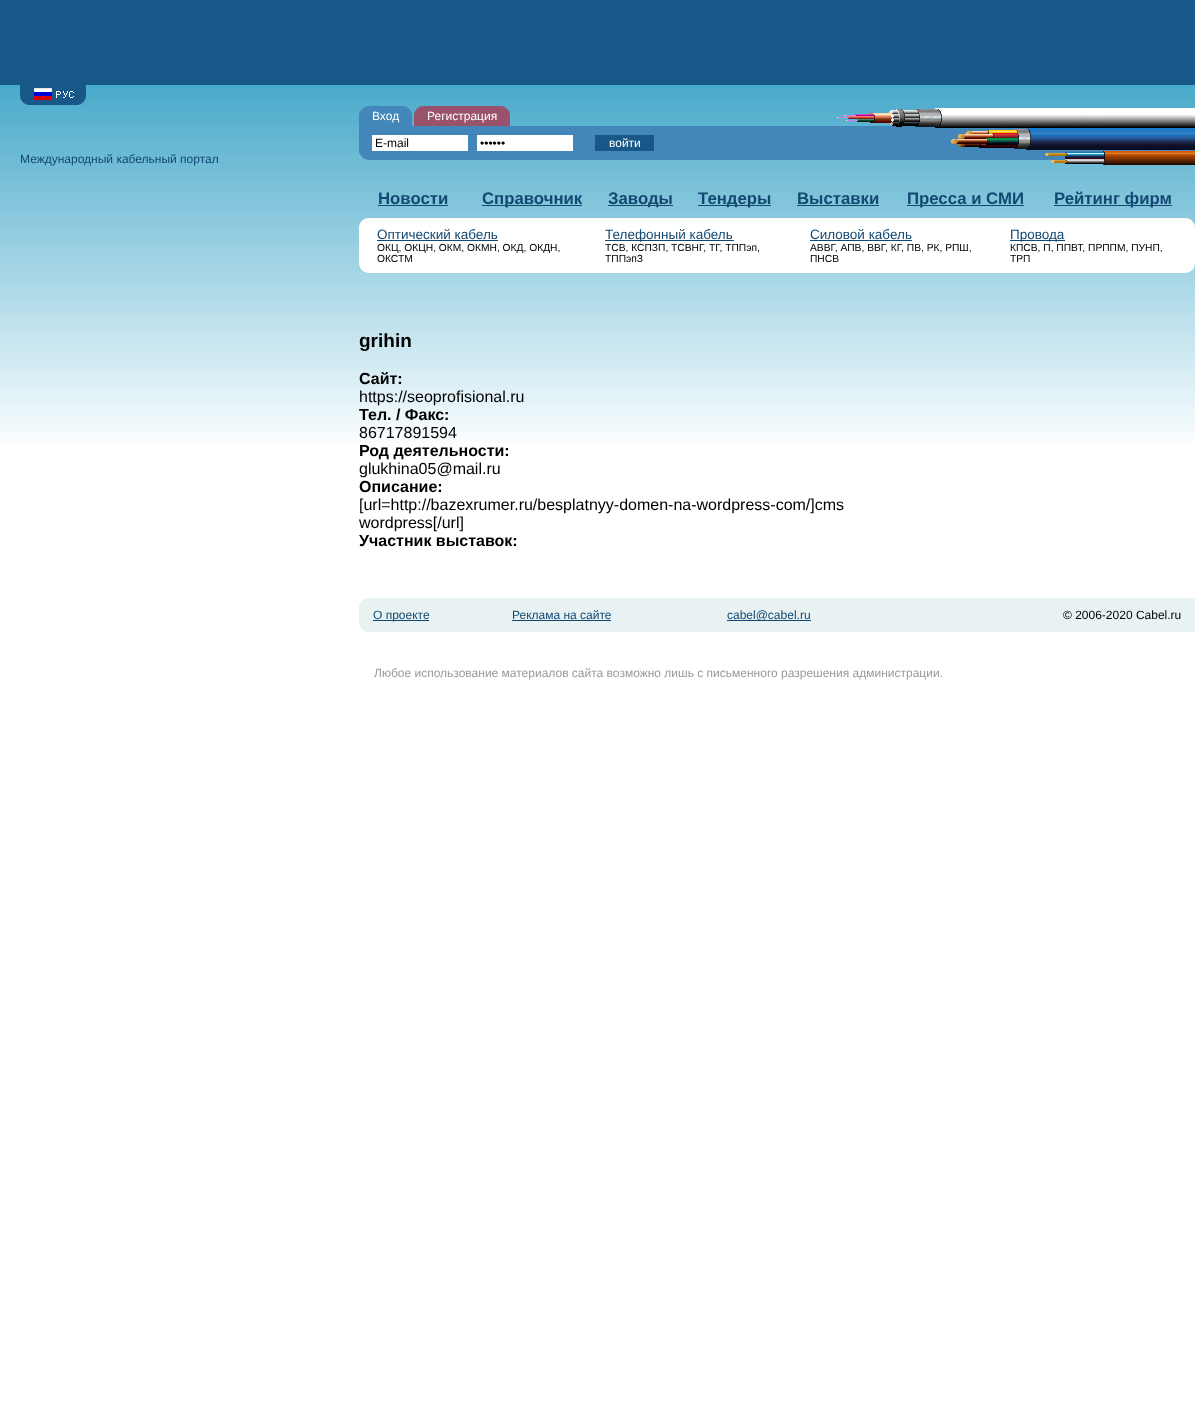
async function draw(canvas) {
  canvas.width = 1195
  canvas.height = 1413
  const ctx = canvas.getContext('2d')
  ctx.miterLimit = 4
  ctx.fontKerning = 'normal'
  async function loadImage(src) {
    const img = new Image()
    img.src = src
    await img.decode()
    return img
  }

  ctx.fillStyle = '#fff'
  ctx.fillRect(0, 0, 1195, 1413)
  ctx.fillStyle = '#185888'
  ctx.fillRect(0, 0, 1195, 85)
  ctx.drawImage(await loadImage('image0.png'), 0, 85, 1195, 358)
  ctx.drawImage(await loadImage('image1.png'), 20, 85, 66, 20)
  ctx.font = '12px Liberation Sans'
  ctx.fillStyle = '#124871'
  ctx.fillText('Международный кабельный портал', 20, 163)
  ctx.fillStyle = '#4386b9'
  ctx.fillRect(359, 106, 53, 20)
  ctx.drawImage(await loadImage('image2.png'), 359, 106, 10, 9)
  ctx.drawImage(await loadImage('image3.png'), 403, 106, 9, 9)
  ctx.fillStyle = '#fff'
  ctx.fillText('Вход', 372, 120)
  ctx.fillStyle = '#98526b'
  ctx.fillRect(414, 106, 96, 20)
  ctx.drawImage(await loadImage('image4.png'), 414, 106, 9, 9)
  ctx.drawImage(await loadImage('image5.png'), 501, 106, 9, 9)
  ctx.fillStyle = '#fff'
  ctx.fillText('Регистрация', 427, 120)
  ctx.fillStyle = '#4386b9'
  ctx.fillRect(359, 126, 836, 34)
  ctx.drawImage(await loadImage('image6.png'), 359, 151, 10, 9)
  ctx.fillStyle = '#fff'
  ctx.fillRect(372, 135, 96, 16)
  ctx.fillStyle = '#000'
  ctx.fillText('E-mail', 375, 147)
  ctx.fillStyle = '#fff'
  ctx.fillRect(477, 135, 96, 16)
  ctx.fillStyle = '#000'
  ctx.fillText('••••••', 480, 147)
  ctx.fillStyle = '#185888'
  ctx.fillRect(595, 135, 59, 16)
  ctx.fillStyle = '#fff'
  ctx.fillText('войти', 609, 147)
  ctx.drawImage(await loadImage('image7.png'), 837, 108, 358, 57)
  ctx.font = 'bold 16.75px Liberation Sans'
  ctx.fillStyle = '#124871'
  ctx.fillText('Новости', 378, 204)
  ctx.fillRect(378, 205, 70, 1)
  ctx.fillRect(482, 205, 100, 1)
  ctx.fillText('Справочник', 482, 204)
  ctx.fillRect(608, 205, 65, 1)
  ctx.fillText('Заводы', 608, 204)
  ctx.fillRect(698, 205, 73, 1)
  ctx.fillText('Тендеры', 698, 204)
  ctx.fillText('Выставки', 797, 204)
  ctx.fillRect(797, 205, 82, 1)
  ctx.fillRect(907, 205, 117, 1)
  ctx.fillText('Пресса и СМИ', 907, 204)
  ctx.fillRect(1054, 205, 118, 1)
  ctx.fillText('Рейтинг фирм', 1054, 204)
  ctx.drawImage(await loadImage('image8.png'), 359, 218, 9, 9)
  ctx.fillStyle = '#fff'
  ctx.fillRect(368, 218, 818, 9)
  ctx.drawImage(await loadImage('image9.png'), 1186, 218, 9, 9)
  ctx.fillRect(359, 227, 836, 37)
  ctx.font = '13.5px Liberation Sans'
  ctx.fillStyle = '#124871'
  ctx.fillText('Оптический кабель', 377, 239)
  ctx.fillRect(377, 240, 121, 1)
  ctx.font = '10.25px Liberation Sans'
  ctx.fillStyle = '#000'
  ctx.fillText('ОКЦ, ОКЦН, ОКМ, ОКМН, ОКД, ОКДН,', 377, 251)
  ctx.fillText('ОКСТМ', 377, 262)
  ctx.fillStyle = '#124871'
  ctx.fillRect(605, 240, 129, 1)
  ctx.font = '13.5px Liberation Sans'
  ctx.fillText('Телефонный кабель', 605, 239)
  ctx.font = '10.25px Liberation Sans'
  ctx.fillStyle = '#000'
  ctx.fillText('ТСВ, КСПЗП, ТСВНГ, ТГ, ТППэп,', 605, 251)
  ctx.fillText('ТППэпЗ', 605, 262)
  ctx.font = '13.5px Liberation Sans'
  ctx.fillStyle = '#124871'
  ctx.fillText('Силовой кабель', 810, 239)
  ctx.fillRect(810, 240, 102, 1)
  ctx.font = '10.25px Liberation Sans'
  ctx.fillStyle = '#000'
  ctx.fillText('АВВГ, АПВ, ВВГ, КГ, ПВ, РК, РПШ,', 810, 251)
  ctx.fillText('ПНСВ', 810, 262)
  ctx.fillStyle = '#124871'
  ctx.fillRect(1010, 240, 55, 1)
  ctx.font = '13.5px Liberation Sans'
  ctx.fillText('Провода', 1010, 239)
  ctx.font = '10.25px Liberation Sans'
  ctx.fillStyle = '#000'
  ctx.fillText('КПСВ, П, ППВТ, ПРППМ, ПУНП,', 1010, 251)
  ctx.fillText('ТРП', 1010, 262)
  ctx.drawImage(await loadImage('image10.png'), 359, 264, 9, 9)
  ctx.fillStyle = '#fff'
  ctx.fillRect(368, 264, 818, 9)
  ctx.drawImage(await loadImage('image11.png'), 1186, 264, 9, 9)
  ctx.font = 'bold 19px Liberation Sans'
  ctx.fillStyle = '#000'
  ctx.fillText('grihin', 359, 347)
  ctx.font = 'bold 16px Liberation Sans'
  ctx.fillText('Сайт:', 359, 384)
  ctx.font = '16px Liberation Sans'
  ctx.fillText('https://seoprofisional.ru', 359, 402)
  ctx.font = 'bold 16px Liberation Sans'
  ctx.fillText('Тел. / Факс:', 359, 420)
  ctx.font = '16px Liberation Sans'
  ctx.fillText('86717891594', 359, 438)
  ctx.font = 'bold 16px Liberation Sans'
  ctx.fillText('Род деятельности:', 359, 456)
  ctx.font = '16px Liberation Sans'
  ctx.fillText('glukhina05@mail.ru', 359, 474)
  ctx.font = 'bold 16px Liberation Sans'
  ctx.fillText('Описание:', 359, 492)
  ctx.font = '16px Liberation Sans'
  ctx.fillText('[url=http://bazexrumer.ru/besplatnyy-domen-na-wordpress-com/]cms', 359, 510)
  ctx.fillText('wordpress[/url]', 359, 528)
  ctx.font = 'bold 16px Liberation Sans'
  ctx.fillText('Участник выставок:', 359, 546)
  ctx.fillStyle = '#e9f2f3'
  ctx.fillRect(359, 598, 836, 34)
  ctx.drawImage(await loadImage('image12.png'), 359, 598, 8, 8)
  ctx.drawImage(await loadImage('image13.png'), 359, 624, 8, 8)
  ctx.fillStyle = '#124871'
  ctx.fillRect(373, 620, 56, 1)
  ctx.font = '12px Liberation Sans'
  ctx.fillText('О проекте', 373, 619)
  ctx.fillText('Реклама на сайте', 512, 619)
  ctx.fillRect(512, 620, 99, 1)
  ctx.fillRect(727, 620, 84, 1)
  ctx.fillText('cabel@cabel.ru', 727, 619)
  ctx.fillStyle = '#000'
  ctx.fillText('© 2006-2020 Cabel.ru', 1063, 619)
  ctx.fillStyle = '#999'
  ctx.fillText('Любое использование материалов сайта возможно лишь с письменного разрешения администрации.', 374, 677)
}

draw(document.querySelector('canvas'))
